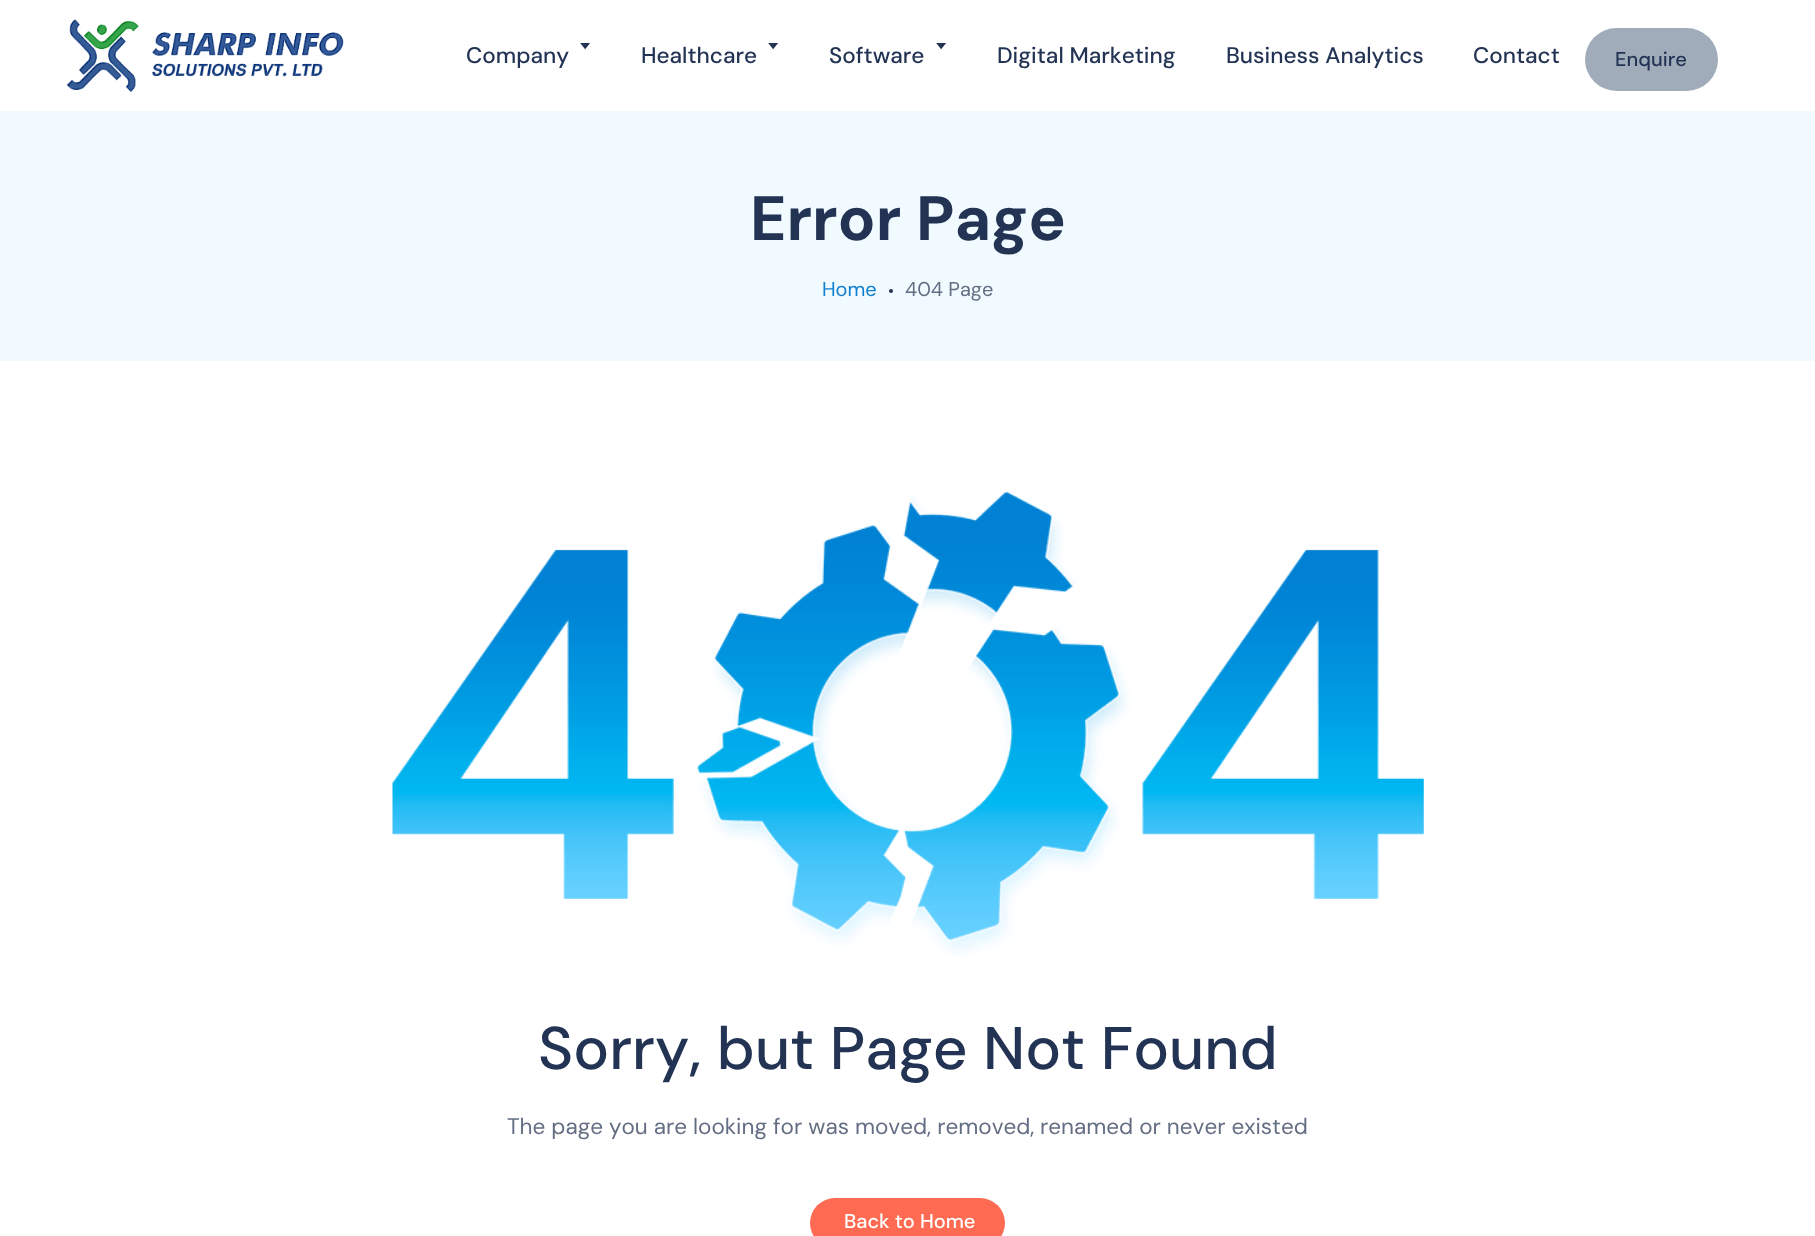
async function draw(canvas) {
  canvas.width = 1815
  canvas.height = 1236
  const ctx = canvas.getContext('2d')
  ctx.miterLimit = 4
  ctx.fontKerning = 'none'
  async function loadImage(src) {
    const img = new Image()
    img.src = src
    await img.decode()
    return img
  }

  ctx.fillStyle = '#fff'
  ctx.fillRect(0, 0, 1815, 1236)
  ctx.drawImage(await loadImage('image0.png'), 66, 19, 278, 74)
  ctx.font = '500 22.5px DM Sans'
  ctx.fillStyle = '#223354'
  ctx.fillText('Company', 466, 63)
  ctx.font = '22.5px "Noto Sans Symbols 2"'
  ctx.fillText('🢓', 579, 63)
  ctx.font = '500 22.5px DM Sans'
  ctx.fillText('Healthcare', 641, 63)
  ctx.font = '22.5px "Noto Sans Symbols 2"'
  ctx.fillText('🢓', 767, 63)
  ctx.font = '500 22.5px DM Sans'
  ctx.fillText('Software', 829, 63)
  ctx.font = '22.5px "Noto Sans Symbols 2"'
  ctx.fillText('🢓', 935, 63)
  ctx.font = '500 22.5px DM Sans'
  ctx.fillText('Digital Marketing', 997, 63)
  ctx.fillText('Business Analytics', 1226, 63)
  ctx.fillText('Contact', 1473, 63)
  ctx.fillStyle = '#a0acb9'
  ctx.beginPath()
  ctx.roundRect(1585, 28, 133, 63, 31.5)
  ctx.fill()
  ctx.font = '500 20px DM Sans'
  ctx.fillStyle = '#223354'
  ctx.fillText('Enquire', 1615, 66)
  ctx.fillStyle = '#f0faff'
  ctx.fillRect(0, 111, 1815, 250)
  ctx.font = 'bold 62.5px DM Sans'
  ctx.fillStyle = '#223354'
  ctx.fillText('Error Page', 750, 240)
  ctx.font = '20px DM Sans'
  ctx.fillStyle = '#1080d0'
  ctx.fillText('Home', 822, 296)
  ctx.fillStyle = '#223354'
  ctx.beginPath()
  ctx.arc(891, 291, 2, 0, 2 * Math.PI)
  ctx.fill()
  ctx.fillStyle = '#646e83'
  ctx.fillText('404 Page', 905, 296)
  ctx.drawImage(await loadImage('image1.png'), 392, 491, 1032, 465)
  ctx.font = '500 60px DM Sans'
  ctx.fillStyle = '#223354'
  ctx.fillText('Sorry, but Page Not Found', 538, 1069)
  ctx.font = '22.5px DM Sans'
  ctx.fillStyle = '#646e83'
  ctx.fillText('The page you are looking for was moved, removed,', 507, 1134)
  ctx.fillText('renamed or never existed', 1040, 1134)
  ctx.fillStyle = '#ff6b52'
  ctx.beginPath()
  ctx.roundRect(810, 1198, 195, 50, 25)
  ctx.fill()
  ctx.font = '500 20px DM Sans'
  ctx.fillStyle = '#fff'
  ctx.fillText('Back to Home', 844, 1228)
}

draw(document.querySelector('canvas'))
